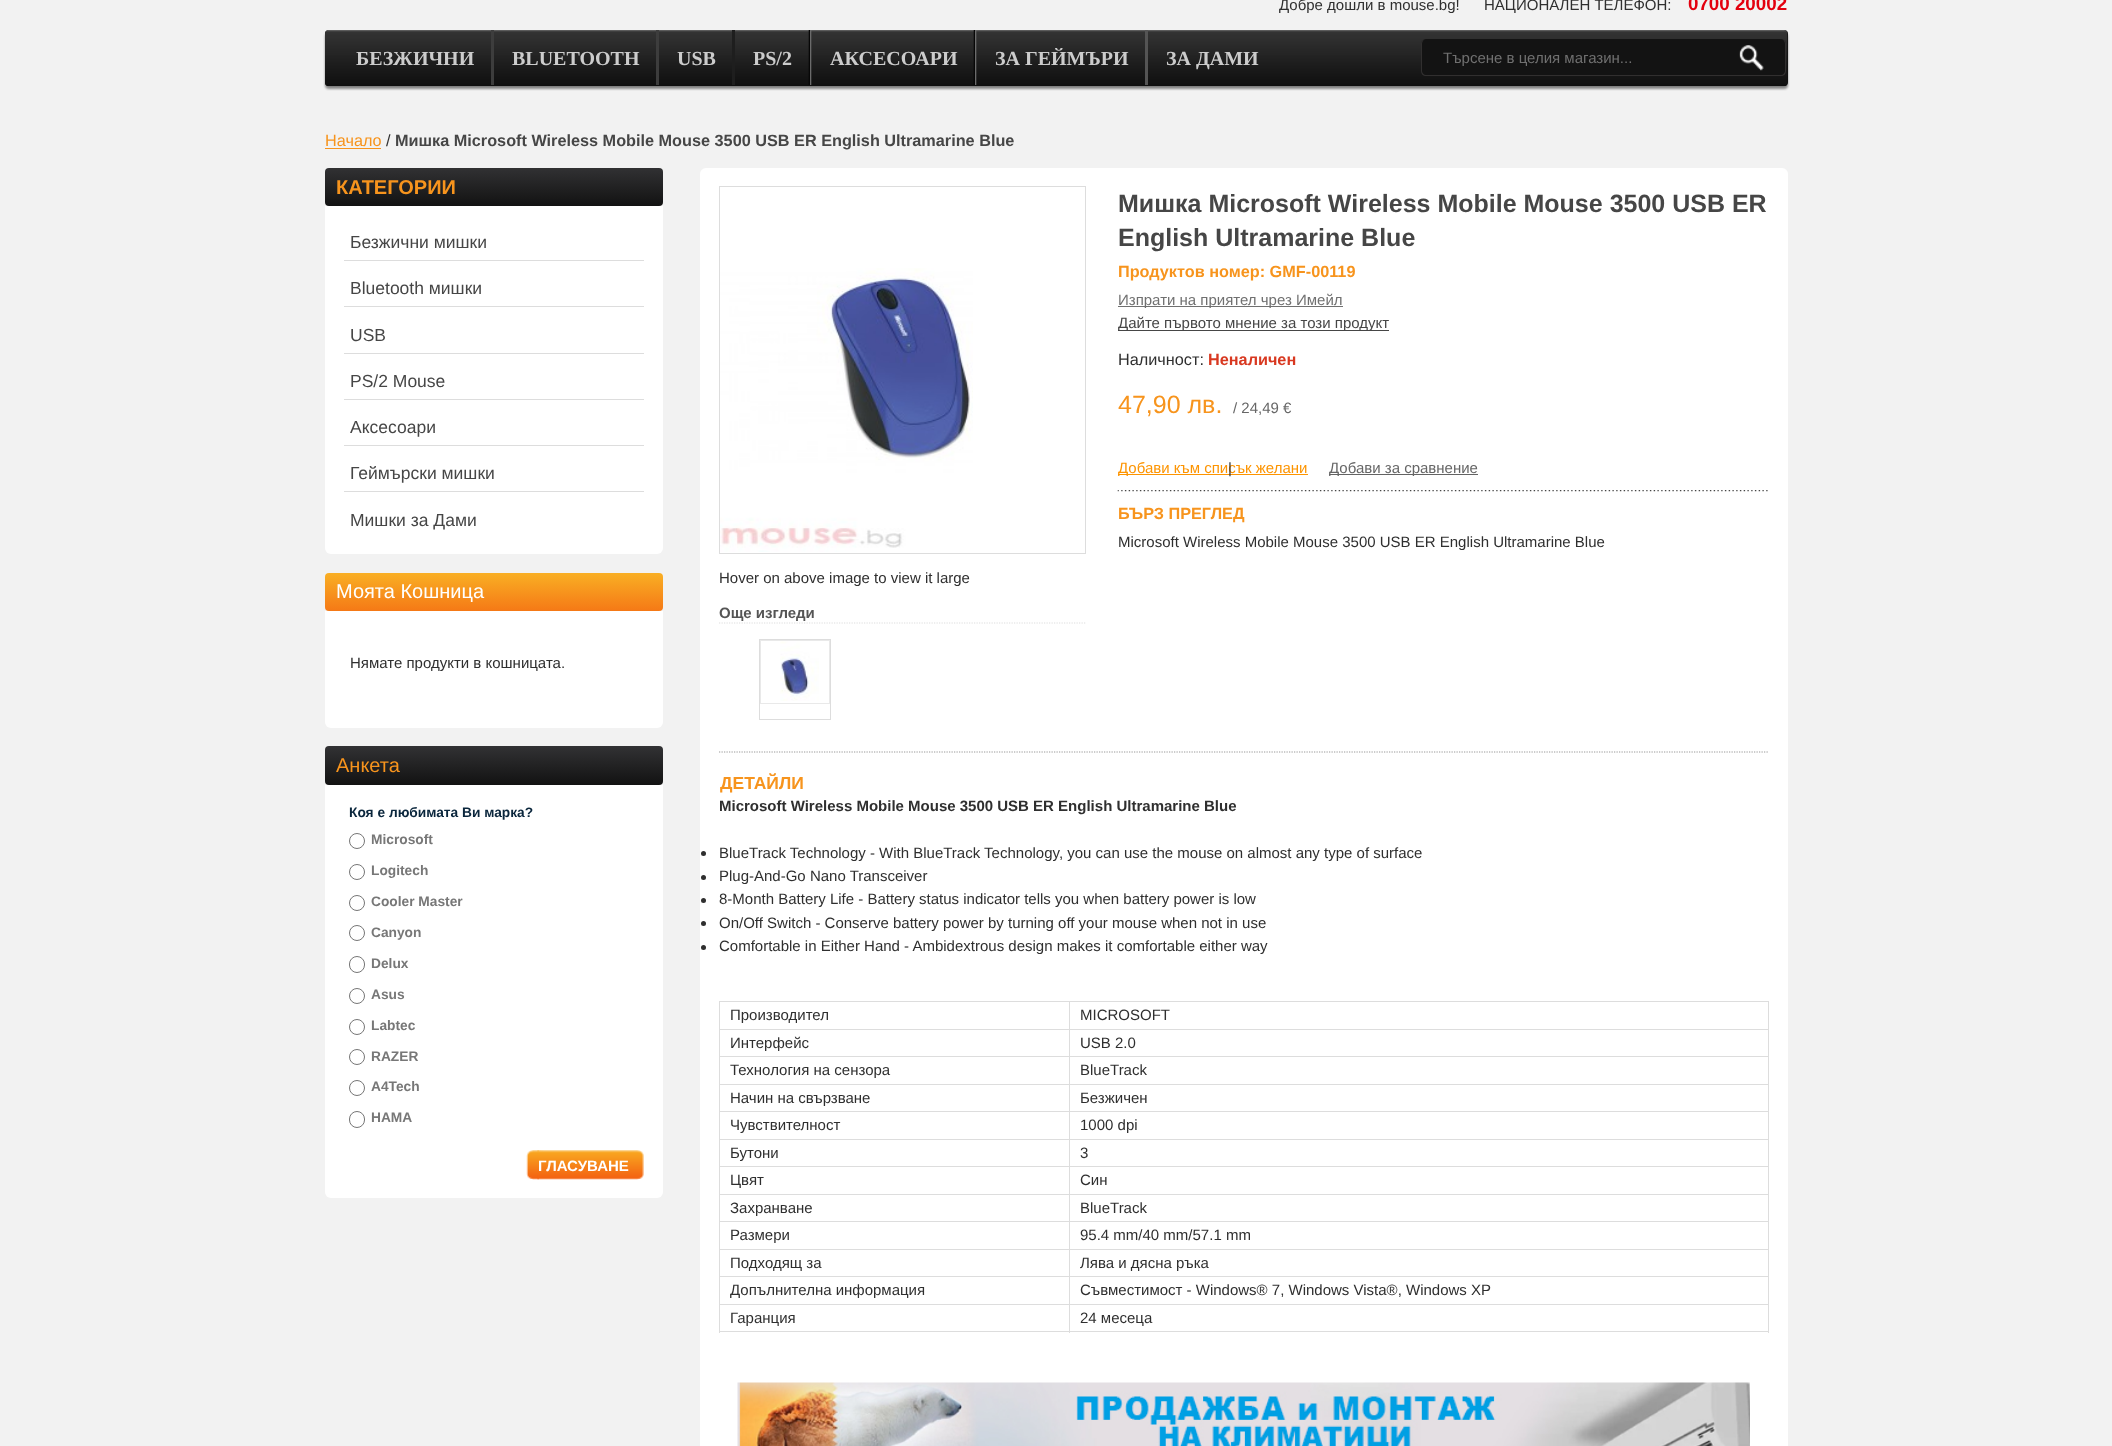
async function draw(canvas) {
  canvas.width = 2112
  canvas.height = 1446
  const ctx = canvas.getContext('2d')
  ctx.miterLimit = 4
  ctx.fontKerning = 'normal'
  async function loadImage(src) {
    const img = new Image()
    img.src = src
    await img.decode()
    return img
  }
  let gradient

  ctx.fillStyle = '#f2f2f2'
  ctx.fillRect(0, 0, 2112, 1446)
  ctx.font = '15px Liberation Sans'
  ctx.fillStyle = '#2f2f2f'
  ctx.fillText('Добре дошли в mouse.bg!', 1279, 10)
  ctx.fillText('НАЦИОНАЛЕН ТЕЛЕФОН:', 1484, 10)
  ctx.font = 'bold 18.75px Liberation Sans'
  ctx.fillStyle = '#e3000f'
  ctx.fillText('0700 20002', 1688, 10)
  ctx.fillStyle = '#888'
  ctx.filter = 'blur(1px)'
  ctx.beginPath()
  ctx.roundRect(325, 33, 1463, 56, 4)
  ctx.fill()
  ctx.filter = 'none'
  ctx.fillStyle = '#101010'
  ctx.beginPath()
  ctx.roundRect(325, 30, 1463, 56, 4)
  ctx.fill()
  ctx.drawImage(await loadImage('image0.png'), 325, 30, 1463, 57)
  ctx.fillStyle = '#3d3d3d'
  ctx.fillRect(491, 30, 3, 55)
  ctx.font = 'bold 20px Liberation Serif'
  ctx.fillStyle = '#ccc'
  ctx.fillText('БЕЗЖИЧНИ', 356, 65)
  ctx.fillStyle = '#3d3d3d'
  ctx.fillRect(656, 30, 3, 55)
  ctx.fillStyle = '#ccc'
  ctx.fillText('BLUETOOTH', 512, 65)
  ctx.fillStyle = '#1e1e1e'
  ctx.fillRect(732, 30, 3, 55)
  ctx.fillStyle = '#ccc'
  ctx.fillText('USB', 677, 65)
  ctx.drawImage(await loadImage('image1.png'), 808, 30, 4, 55)
  ctx.fillText('PS/2', 753, 65)
  ctx.drawImage(await loadImage('image1.png'), 973, 30, 4, 55)
  ctx.fillText('АКСЕСОАРИ', 830, 65)
  ctx.fillStyle = '#545454'
  ctx.fillRect(1145, 30, 3, 55)
  ctx.fillStyle = '#ccc'
  ctx.fillText('ЗА ГЕЙМЪРИ', 995, 65)
  ctx.fillText('ЗА ДАМИ', 1166, 65)
  ctx.fillStyle = '#131313'
  ctx.beginPath()
  ctx.roundRect(1421, 39, 365, 37, 5)
  ctx.fill()
  ctx.fillStyle = '#312f2f'
  ctx.beginPath()
  ctx.moveTo(1426, 39)
  ctx.lineTo(1781, 39)
  ctx.bezierCurveTo(1784, 39, 1786, 41, 1786, 44)
  ctx.lineTo(1786, 71)
  ctx.bezierCurveTo(1786, 74, 1784, 76, 1781, 76)
  ctx.lineTo(1426, 76)
  ctx.bezierCurveTo(1423, 76, 1421, 74, 1421, 71)
  ctx.lineTo(1421, 44)
  ctx.bezierCurveTo(1421, 41, 1423, 39, 1426, 39)
  ctx.closePath()
  ctx.moveTo(1426, 39)
  ctx.lineTo(1781, 39)
  ctx.bezierCurveTo(1783, 39, 1785, 41, 1785, 44)
  ctx.lineTo(1785, 71)
  ctx.bezierCurveTo(1785, 73, 1783, 75, 1781, 75)
  ctx.lineTo(1426, 75)
  ctx.bezierCurveTo(1424, 75, 1422, 73, 1422, 71)
  ctx.lineTo(1422, 44)
  ctx.bezierCurveTo(1422, 41, 1424, 39, 1426, 39)
  ctx.closePath()
  ctx.fill('evenodd')
  ctx.font = '15px Liberation Sans'
  ctx.fillStyle = '#707070'
  ctx.fillText('Търсене в целия магазин...', 1443, 63)
  ctx.drawImage(await loadImage('image2.png'), 1739, 45, 25, 26)
  ctx.font = '16.25px Liberation Sans'
  ctx.fillStyle = '#f7941d'
  ctx.fillText('Начало', 325, 146)
  ctx.fillRect(325, 148, 56, 1)
  ctx.fillStyle = '#2f2f2f'
  ctx.fillText('/', 386, 146)
  ctx.font = 'bold 16.25px Liberation Sans'
  ctx.fillStyle = '#464646'
  ctx.fillText('Мишка Microsoft Wireless Mobile Mouse 3500 USB ER English Ultramarine Blue', 395, 146)
  gradient = ctx.createLinearGradient(494, 167, 494, 206)
  gradient.addColorStop(0, '#323234')
  gradient.addColorStop(1, '#121212')
  ctx.fillStyle = gradient
  ctx.beginPath()
  ctx.roundRect(325, 168, 338, 38, 4)
  ctx.fill()
  ctx.font = 'bold 20px Liberation Sans'
  ctx.fillStyle = '#f7941d'
  ctx.fillText('КАТЕГОРИИ', 336, 194)
  ctx.fillStyle = '#fff'
  ctx.beginPath()
  ctx.roundRect(325, 206, 338, 348, [0, 0, 6, 6])
  ctx.fill()
  ctx.fillStyle = '#ddd'
  ctx.fillRect(344, 260, 300, 1)
  ctx.font = '17.5px Liberation Sans'
  ctx.fillStyle = '#464646'
  ctx.fillText('Безжични мишки', 350, 248)
  ctx.fillStyle = '#ddd'
  ctx.fillRect(344, 306, 300, 1)
  ctx.fillStyle = '#464646'
  ctx.fillText('Bluetooth мишки', 350, 294)
  ctx.fillStyle = '#ddd'
  ctx.fillRect(344, 353, 300, 1)
  ctx.fillStyle = '#464646'
  ctx.fillText('USB', 350, 341)
  ctx.fillStyle = '#ddd'
  ctx.fillRect(344, 399, 300, 1)
  ctx.fillStyle = '#464646'
  ctx.fillText('PS/2 Mouse', 350, 387)
  ctx.fillStyle = '#ddd'
  ctx.fillRect(344, 445, 300, 1)
  ctx.fillStyle = '#464646'
  ctx.fillText('Аксесоари', 350, 433)
  ctx.fillStyle = '#ddd'
  ctx.fillRect(344, 491, 300, 1)
  ctx.fillStyle = '#464646'
  ctx.fillText('Геймърски мишки', 350, 479)
  ctx.fillText('Мишки за Дами', 350, 526)
  gradient = ctx.createLinearGradient(494, 573, 494, 611)
  gradient.addColorStop(0, '#f9af24')
  gradient.addColorStop(1, '#f57916')
  ctx.fillStyle = gradient
  ctx.beginPath()
  ctx.roundRect(325, 573, 338, 38, 4)
  ctx.fill()
  ctx.font = '20px Liberation Sans'
  ctx.fillStyle = '#fff'
  ctx.fillText('Моята Кошница', 336, 598)
  ctx.beginPath()
  ctx.roundRect(325, 611, 338, 117, [0, 0, 6, 6])
  ctx.fill()
  ctx.font = '15px Liberation Sans'
  ctx.fillStyle = '#2f2f2f'
  ctx.fillText('Нямате продукти в кошницата.', 350, 668)
  gradient = ctx.createLinearGradient(494, 746, 494, 785)
  gradient.addColorStop(0, '#323234')
  gradient.addColorStop(1, '#121212')
  ctx.fillStyle = gradient
  ctx.beginPath()
  ctx.roundRect(325, 746, 338, 39, 4)
  ctx.fill()
  ctx.font = '20px Liberation Sans'
  ctx.fillStyle = '#f7941d'
  ctx.fillText('Анкета', 336, 772)
  ctx.fillStyle = '#fff'
  ctx.beginPath()
  ctx.roundRect(325, 785, 338, 413, [0, 0, 6, 6])
  ctx.fill()
  ctx.font = 'bold 13.75px Liberation Sans'
  ctx.fillStyle = '#0a263c'
  ctx.fillText('Коя е любимата Ви марка?', 349, 817)
  ctx.beginPath()
  ctx.arc(357, 841, 7.5, 0, 2 * Math.PI)
  ctx.strokeStyle = '#767676'
  ctx.stroke()
  ctx.fillStyle = '#777'
  ctx.fillText('Microsoft', 371, 844)
  ctx.beginPath()
  ctx.arc(357, 872, 7.5, 0, 2 * Math.PI)
  ctx.stroke()
  ctx.fillText('Logitech', 371, 875)
  ctx.beginPath()
  ctx.arc(357, 903, 7.5, 0, 2 * Math.PI)
  ctx.stroke()
  ctx.fillText('Cooler Master', 371, 906)
  ctx.beginPath()
  ctx.arc(357, 933, 7.5, 0, 2 * Math.PI)
  ctx.stroke()
  ctx.fillText('Canyon', 371, 937)
  ctx.beginPath()
  ctx.roundRect(349.5, 956.5, 15, 16, 7.5)
  ctx.stroke()
  ctx.fillText('Delux', 371, 968)
  ctx.beginPath()
  ctx.arc(357, 996, 7.5, 0, 2 * Math.PI)
  ctx.stroke()
  ctx.fillText('Asus', 371, 999)
  ctx.beginPath()
  ctx.arc(357, 1027, 7.5, 0, 2 * Math.PI)
  ctx.stroke()
  ctx.fillText('Labtec', 371, 1030)
  ctx.beginPath()
  ctx.arc(357, 1057, 7.5, 0, 2 * Math.PI)
  ctx.stroke()
  ctx.fillText('RAZER', 371, 1061)
  ctx.beginPath()
  ctx.arc(357, 1088, 7.5, 0, 2 * Math.PI)
  ctx.stroke()
  ctx.fillText('A4Tech', 371, 1091)
  ctx.beginPath()
  ctx.roundRect(349.5, 1111.5, 15, 16, 7.5)
  ctx.stroke()
  ctx.fillText('HAMA', 371, 1122)
  ctx.drawImage(await loadImage('image3.png'), 526, 1150, 13, 30)
  ctx.drawImage(await loadImage('image4.png'), 537, 1150, 107, 30)
  ctx.font = 'bold 15px Liberation Sans'
  ctx.fillStyle = '#fff'
  ctx.fillText('ГЛАСУВАНЕ', 538, 1171)
  ctx.beginPath()
  ctx.roundRect(700, 168, 1088, 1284, 6)
  ctx.fill()
  ctx.font = 'bold 25px Liberation Sans'
  ctx.fillStyle = '#464646'
  ctx.fillText('Мишка Microsoft Wireless Mobile Mouse 3500 USB ER', 1118, 212)
  ctx.fillText('English Ultramarine Blue', 1118, 246)
  ctx.font = 'bold 16.25px Liberation Sans'
  ctx.fillStyle = '#f7941d'
  ctx.fillText('Продуктов номер: GMF-00119', 1118, 277)
  ctx.fillStyle = '#707070'
  ctx.fillRect(1118, 306, 225, 1)
  ctx.font = '15px Liberation Sans'
  ctx.fillText('Изпрати на приятел чрез Имейл', 1118, 305)
  ctx.fillStyle = '#464646'
  ctx.fillRect(1118, 330, 271, 1)
  ctx.fillText('Дайте първото мнение за този продукт', 1118, 328)
  ctx.font = '16.25px Liberation Sans'
  ctx.fillStyle = '#2f2f2f'
  ctx.fillText('Наличност:', 1118, 365)
  ctx.font = 'bold 16.25px Liberation Sans'
  ctx.fillStyle = '#d83820'
  ctx.fillText('Неналичен', 1208, 365)
  ctx.font = '25px Liberation Sans'
  ctx.fillStyle = '#f7941d'
  ctx.fillText('47,90 лв.', 1118, 413)
  ctx.font = '15px Liberation Sans'
  ctx.fillStyle = '#666'
  ctx.fillText('/ 24,49 €', 1233, 413)
  ctx.fillStyle = '#fd9400'
  ctx.fillRect(1118, 474, 190, 1)
  ctx.fillText('Добави към списък желани', 1118, 473)
  ctx.fillStyle = '#2f2f2f'
  ctx.fillText('|', 1228, 473)
  ctx.fillStyle = '#636363'
  ctx.fillRect(1329, 474, 149, 1)
  ctx.fillStyle = '#666'
  ctx.fillText('Добави за сравнение', 1329, 473)
  ctx.drawImage(await loadImage('image5.png'), 1117, 490, 651, 2)
  ctx.font = 'bold 16.25px Liberation Sans'
  ctx.fillStyle = '#f7941d'
  ctx.fillText('БЪРЗ ПРЕГЛЕД', 1118, 519)
  ctx.font = '15px Liberation Sans'
  ctx.fillStyle = '#2f2f2f'
  ctx.fillText('Microsoft Wireless Mobile Mouse 3500 USB ER English Ultramarine Blue', 1118, 547)
  ctx.strokeStyle = '#ddd'
  ctx.strokeRect(719.5, 186.5, 366, 367)
  ctx.drawImage(await loadImage('image6.png'), 720, 268, 253, 284)
  ctx.fillText('Hover on above image to view it large', 719, 583)
  ctx.beginPath()
  ctx.moveTo(719, 623)
  ctx.lineTo(1086, 623)
  ctx.lineWidth = 1.2
  ctx.setLineDash([1.25, 1.25])
  ctx.stroke()
  ctx.font = 'bold 15px Liberation Sans'
  ctx.fillStyle = '#555'
  ctx.fillText('Още изгледи', 719, 618)
  ctx.lineWidth = 1
  ctx.setLineDash([])
  ctx.strokeRect(759.5, 639.5, 71, 80)
  ctx.strokeStyle = '#e9e9e9'
  ctx.strokeRect(760.5, 640.5, 69, 63)
  ctx.drawImage(await loadImage('image7.png'), 780, 641, 39, 60)
  ctx.beginPath()
  ctx.moveTo(719, 752)
  ctx.lineTo(1769, 752)
  ctx.strokeStyle = '#999'
  ctx.lineWidth = 1.2
  ctx.setLineDash([1.25, 1.25])
  ctx.stroke()
  ctx.font = 'bold 17.5px Liberation Sans'
  ctx.fillStyle = '#f7941d'
  ctx.fillText('ДЕТАЙЛИ', 720, 789)
  ctx.font = 'bold 15px Liberation Sans'
  ctx.fillStyle = '#2f2f2f'
  ctx.fillText('Microsoft Wireless Mobile Mouse 3500 USB ER English Ultramarine Blue', 719, 811)
  ctx.beginPath()
  ctx.arc(703.5, 853.5, 2.5, 0, 2 * Math.PI)
  ctx.fill()
  ctx.font = '15px Liberation Sans'
  ctx.fillText('BlueTrack Technology - With BlueTrack Technology, you can use the mouse on almost any type of surface', 719, 858)
  ctx.beginPath()
  ctx.arc(703.5, 877.5, 2.5, 0, 2 * Math.PI)
  ctx.fill()
  ctx.fillText('Plug-And-Go Nano Transceiver', 719, 881)
  ctx.beginPath()
  ctx.arc(703.5, 900.5, 2.5, 0, 2 * Math.PI)
  ctx.fill()
  ctx.fillText('8-Month Battery Life - Battery status indicator tells you when battery power is low', 719, 904)
  ctx.beginPath()
  ctx.arc(703.5, 923.5, 2.5, 0, 2 * Math.PI)
  ctx.fill()
  ctx.fillText('On/Off Switch - Conserve battery power by turning off your mouse when not in use', 719, 928)
  ctx.beginPath()
  ctx.arc(703.5, 947.5, 2.5, 0, 2 * Math.PI)
  ctx.fill()
  ctx.fillText('Comfortable in Either Hand - Ambidextrous design makes it comfortable either way', 719, 951)
  ctx.fillStyle = '#ddd'
  ctx.fillRect(719, 1001, 1050, 1)
  ctx.fillRect(1768, 1001, 1, 332)
  ctx.fillRect(719, 1001, 1, 332)
  ctx.fillRect(1069, 1331, 700, 1)
  ctx.fillRect(1069, 1304, 1, 29)
  ctx.fillRect(1069, 1304, 700, 1)
  ctx.fillRect(1069, 1276, 1, 29)
  ctx.fillRect(1069, 1276, 700, 1)
  ctx.fillRect(1069, 1249, 1, 29)
  ctx.fillRect(1069, 1249, 700, 1)
  ctx.fillRect(1069, 1221, 1, 29)
  ctx.fillRect(1069, 1221, 700, 1)
  ctx.fillRect(1069, 1194, 1, 29)
  ctx.fillRect(1069, 1194, 700, 1)
  ctx.fillRect(1069, 1166, 1, 29)
  ctx.fillRect(1069, 1166, 700, 1)
  ctx.fillRect(1069, 1139, 1, 29)
  ctx.fillRect(1069, 1139, 700, 1)
  ctx.fillRect(1069, 1111, 1, 29)
  ctx.fillRect(1069, 1111, 700, 1)
  ctx.fillRect(1069, 1084, 1, 29)
  ctx.fillRect(1069, 1084, 700, 1)
  ctx.fillRect(1069, 1056, 1, 29)
  ctx.fillRect(1069, 1056, 700, 1)
  ctx.fillRect(1069, 1029, 1, 29)
  ctx.fillRect(1069, 1029, 700, 1)
  ctx.fillRect(1069, 1001, 1, 29)
  ctx.fillRect(719, 1029, 351, 1)
  ctx.fillStyle = '#2f2f2f'
  ctx.fillText('Производител', 730, 1020)
  ctx.fillText('MICROSOFT', 1080, 1020)
  ctx.fillStyle = '#ddd'
  ctx.fillRect(719, 1056, 351, 1)
  ctx.fillStyle = '#2f2f2f'
  ctx.fillText('Интерфейс', 730, 1048)
  ctx.fillText('USB 2.0', 1080, 1048)
  ctx.fillStyle = '#ddd'
  ctx.fillRect(719, 1084, 351, 1)
  ctx.fillStyle = '#2f2f2f'
  ctx.fillText('Технология на сензора', 730, 1075)
  ctx.fillText('BlueTrack', 1080, 1075)
  ctx.fillStyle = '#ddd'
  ctx.fillRect(719, 1111, 351, 1)
  ctx.fillStyle = '#2f2f2f'
  ctx.fillText('Начин на свързване', 730, 1103)
  ctx.fillText('Безжичен', 1080, 1103)
  ctx.fillStyle = '#ddd'
  ctx.fillRect(719, 1139, 351, 1)
  ctx.fillStyle = '#2f2f2f'
  ctx.fillText('Чувствителност', 730, 1130)
  ctx.fillText('1000 dpi', 1080, 1130)
  ctx.fillStyle = '#ddd'
  ctx.fillRect(719, 1166, 351, 1)
  ctx.fillStyle = '#2f2f2f'
  ctx.fillText('Бутони', 730, 1158)
  ctx.fillText('3', 1080, 1158)
  ctx.fillStyle = '#ddd'
  ctx.fillRect(719, 1194, 351, 1)
  ctx.fillStyle = '#2f2f2f'
  ctx.fillText('Цвят', 730, 1185)
  ctx.fillText('Син', 1080, 1185)
  ctx.fillStyle = '#ddd'
  ctx.fillRect(719, 1221, 351, 1)
  ctx.fillStyle = '#2f2f2f'
  ctx.fillText('Захранване', 730, 1213)
  ctx.fillText('BlueTrack', 1080, 1213)
  ctx.fillStyle = '#ddd'
  ctx.fillRect(719, 1249, 351, 1)
  ctx.fillStyle = '#2f2f2f'
  ctx.fillText('Размери', 730, 1240)
  ctx.fillText('95.4 mm/40 mm/57.1 mm', 1080, 1240)
  ctx.fillStyle = '#ddd'
  ctx.fillRect(719, 1276, 351, 1)
  ctx.fillStyle = '#2f2f2f'
  ctx.fillText('Подходящ за', 730, 1268)
  ctx.fillText('Лява и дясна ръка', 1080, 1268)
  ctx.fillStyle = '#ddd'
  ctx.fillRect(719, 1304, 351, 1)
  ctx.fillStyle = '#2f2f2f'
  ctx.fillText('Допълнителна информация', 730, 1295)
  ctx.fillText('Съвместимост - Windows® 7, Windows Vista®, Windows XP', 1080, 1295)
  ctx.fillStyle = '#ddd'
  ctx.fillRect(719, 1331, 351, 1)
  ctx.fillStyle = '#2f2f2f'
  ctx.fillText('Гаранция', 730, 1323)
  ctx.fillText('24 месеца', 1080, 1323)
  ctx.drawImage(await loadImage('image8.png'), 737, 1382, 1013, 64)
}

draw(document.querySelector('canvas'))
